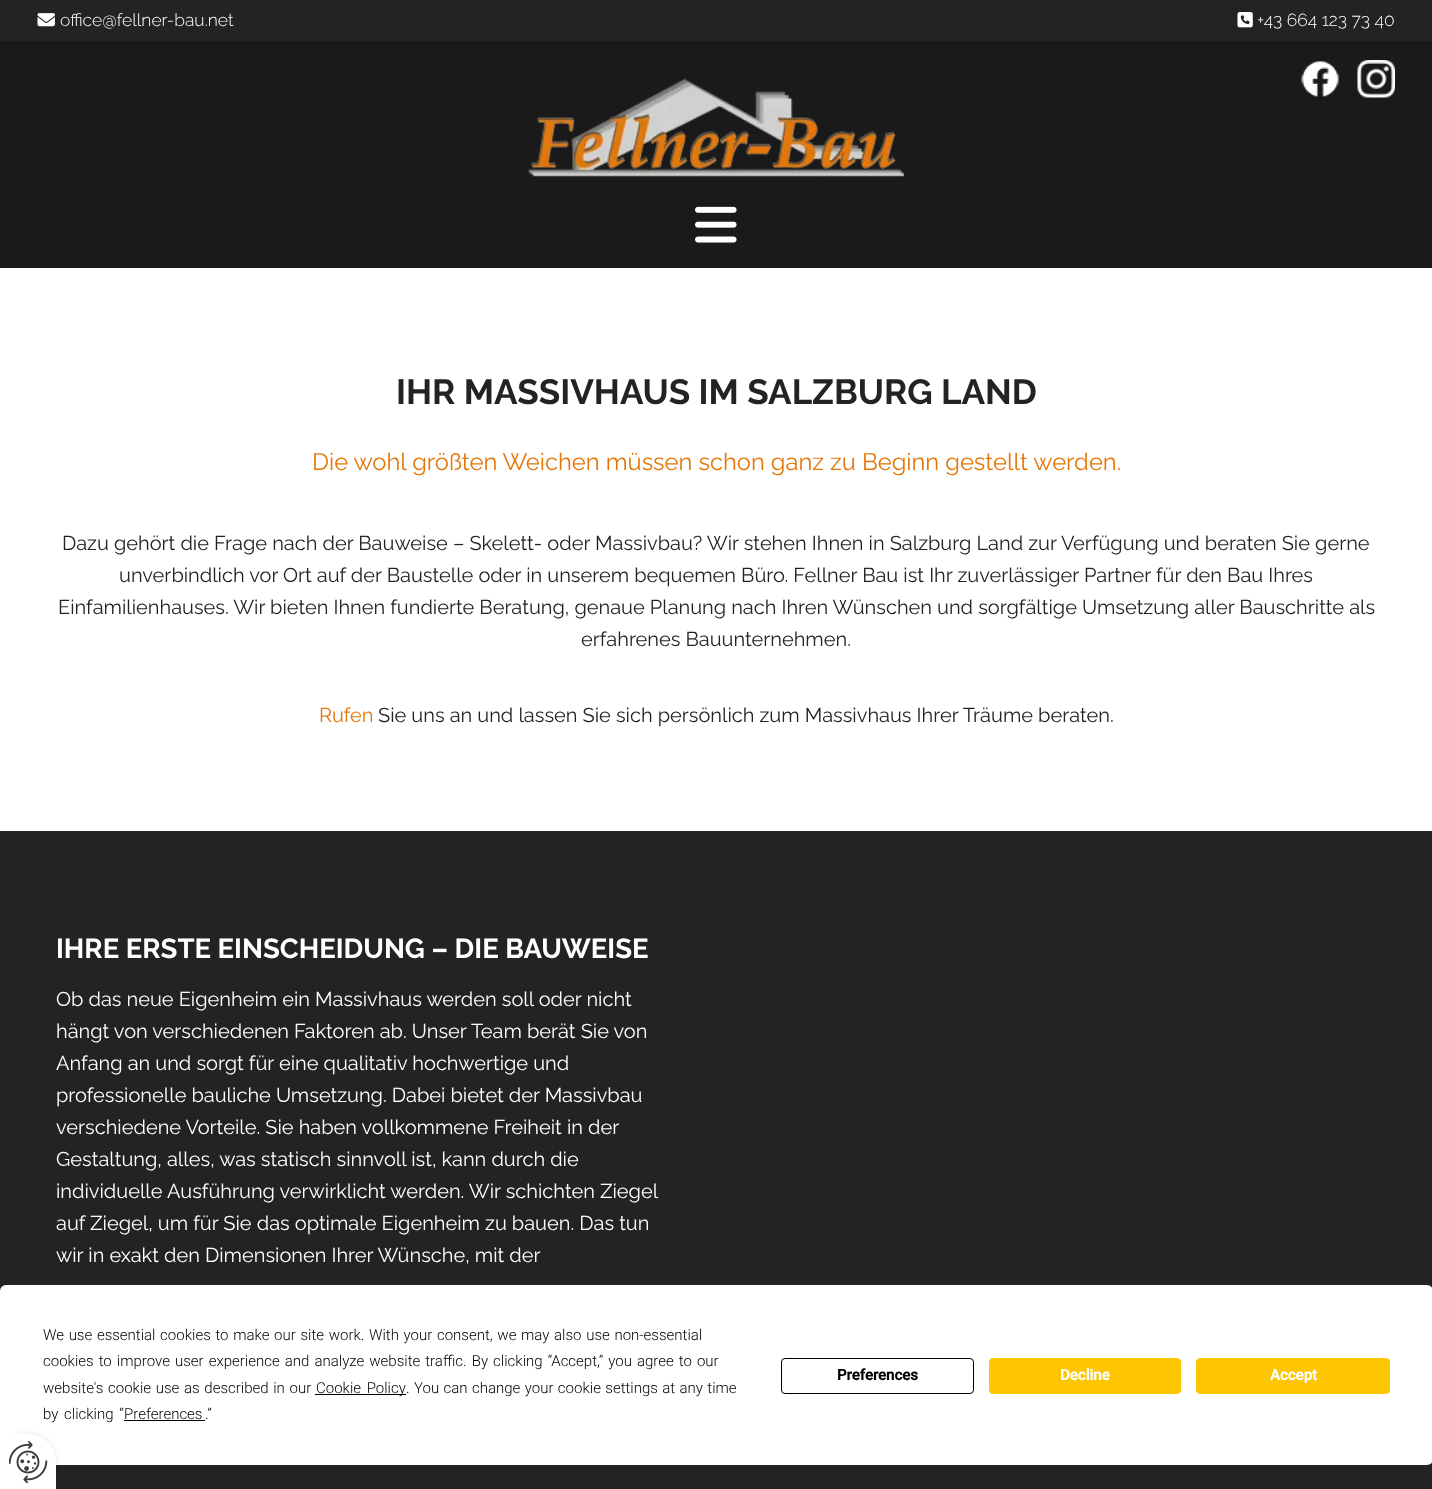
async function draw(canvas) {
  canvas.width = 1432
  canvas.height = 1489
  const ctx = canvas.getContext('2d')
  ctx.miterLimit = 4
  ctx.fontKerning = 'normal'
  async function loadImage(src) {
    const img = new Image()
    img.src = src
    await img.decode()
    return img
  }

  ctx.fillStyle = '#1a1a1a'
  ctx.fillRect(0, 0, 1432, 1489)
  ctx.fillStyle = '#232323'
  ctx.fillRect(0, 0, 1432, 41)
  ctx.drawImage(await loadImage('image0.png'), 37, 13, 18, 14)
  ctx.font = '100 17.5px Raleway'
  ctx.fillStyle = '#fff'
  ctx.fillText('office@fellner-bau.net', 60, 26)
  ctx.drawImage(await loadImage('image1.png'), 1237, 12, 16, 16)
  ctx.fillText('+43 664 123 73 40', 1257, 26)
  ctx.drawImage(await loadImage('image2.png'), 528, 78, 376, 99)
  ctx.drawImage(await loadImage('image3.png'), 1301, 61, 38, 36)
  ctx.drawImage(await loadImage('image4.png'), 1357, 60, 38, 38)
  ctx.drawImage(await loadImage('image5.png'), 695, 206, 42, 37)
  ctx.fillRect(0, 268, 1432, 563)
  ctx.font = '100 35px "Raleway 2"'
  ctx.fillStyle = '#232323'
  ctx.fillText('IHR MASSIVHAUS IM SALZBURG LAND', 396, 404)
  ctx.font = '100 23.75px "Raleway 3"'
  ctx.fillStyle = '#e57708'
  ctx.fillText('Die wohl größten Weichen müssen schon ganz zu Beginn gestellt werden.', 312, 470)
  ctx.font = '100 20px "Raleway 3"'
  ctx.fillStyle = '#232323'
  ctx.fillText('Dazu gehört die Frage nach der Bauweise – Skelett- oder Massivbau? Wir stehen Ihnen in Salzburg Land zur Verfügung und beraten Sie gerne', 62, 550)
  ctx.fillText('unverbindlich vor Ort auf der Baustelle oder in unserem bequemen Büro. Fellner Bau ist Ihr zuverlässiger Partner für den Bau Ihres', 119, 582)
  ctx.fillText('Einfamilienhauses. Wir bieten Ihnen fundierte Beratung, genaue Planung nach Ihren Wünschen und sorgfältige Umsetzung aller Bauschritte als', 58, 614)
  ctx.fillText('erfahrenes Bauunternehmen.', 581, 646)
  ctx.fillStyle = '#e57708'
  ctx.fillText('Rufen', 319, 722)
  ctx.fillStyle = '#232323'
  ctx.fillText('Sie uns an und lassen Sie sich persönlich zum Massivhaus Ihrer Träume beraten.', 378, 722)
  ctx.fillRect(0, 831, 1432, 658)
  ctx.font = '100 27.5px "Raleway 2"'
  ctx.fillStyle = '#fff'
  ctx.fillText('IHRE ERSTE EINSCHEIDUNG – DIE BAUWEISE', 56, 958)
  ctx.font = '100 20px "Raleway 3"'
  ctx.fillText('Ob das neue Eigenheim ein Massivhaus werden soll oder nicht', 56, 1006)
  ctx.fillText('hängt von verschiedenen Faktoren ab. Unser Team berät Sie von', 56, 1038)
  ctx.fillText('Anfang an und sorgt für eine qualitativ hochwertige und', 56, 1070)
  ctx.fillText('professionelle bauliche Umsetzung. Dabei bietet der Massivbau', 56, 1102)
  ctx.fillText('verschiedene Vorteile. Sie haben vollkommene Freiheit in der', 56, 1134)
  ctx.fillText('Gestaltung, alles, was statisch sinnvoll ist, kann durch die', 56, 1166)
  ctx.fillText('individuelle Ausführung verwirklicht werden. Wir schichten Ziegel', 56, 1198)
  ctx.fillText('auf Ziegel, um für Sie das optimale Eigenheim zu bauen. Das tun', 56, 1230)
  ctx.fillText('wir in exakt den Dimensionen Ihrer Wünsche, mit der', 56, 1262)
  ctx.beginPath()
  ctx.roundRect(0, 1285, 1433, 180, 6)
  ctx.fill()
  ctx.wordSpacing = '1px'
  ctx.font = '300 15px Roboto'
  ctx.fillStyle = '#000'
  ctx.fillText('We use essential cookies to make our site work. With your consent, we may also use non-essential', 43, 1340)
  ctx.wordSpacing = '1.4px'
  ctx.fillText('cookies to improve user experience and analyze website traffic. By clicking “Accept,” you agree to our', 43, 1366)
  ctx.wordSpacing = '1px'
  ctx.fillText('website\'s cookie use as described in our', 43, 1393)
  ctx.fillRect(315, 1394, 91, 1)
  ctx.wordSpacing = '2px'
  ctx.fillText('Cookie Policy', 316, 1393)
  ctx.wordSpacing = '0.75px'
  ctx.fillText('. You can change your cookie settings at any time', 406, 1393)
  ctx.wordSpacing = '2px'
  ctx.fillText('by clicking “', 43, 1419)
  ctx.wordSpacing = '0px'
  ctx.fillText('Preferences', 124, 1419)
  ctx.fillRect(124, 1420, 81, 1)
  ctx.fillText('.”', 205, 1419)
  ctx.beginPath()
  ctx.roundRect(781.5, 1358.5, 192, 35, 3.5)
  ctx.strokeStyle = '#000'
  ctx.stroke()
  ctx.font = 'bold 15px Roboto'
  ctx.fillText('Preferences', 837, 1380)
  ctx.fillStyle = '#fec600'
  ctx.beginPath()
  ctx.roundRect(989.5, 1358.5, 191, 35, 3.5)
  ctx.fill()
  ctx.strokeStyle = '#fec600'
  ctx.stroke()
  ctx.fillStyle = '#fff'
  ctx.fillText('Decline', 1060, 1380)
  ctx.fillStyle = '#fec600'
  ctx.beginPath()
  ctx.roundRect(1196.5, 1358.5, 193, 35, 3.5)
  ctx.fill()
  ctx.stroke()
  ctx.fillStyle = '#fff'
  ctx.fillText('Accept', 1270, 1380)
  ctx.fillStyle = '#0000001a'
  ctx.filter = 'blur(3px)'
  ctx.beginPath()
  ctx.roundRect(0, 1434, 56, 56, 28)
  ctx.fill()
  ctx.filter = 'none'
  ctx.fillStyle = '#fff'
  ctx.beginPath()
  ctx.moveTo(0, 1434)
  ctx.lineTo(28, 1434)
  ctx.bezierCurveTo(43.5, 1434, 56, 1446.5, 56, 1462)
  ctx.lineTo(56, 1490)
  ctx.lineTo(0, 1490)
  ctx.closePath()
  ctx.fill()
  ctx.drawImage(await loadImage('image6.png'), 9, 1441, 39, 43)
}

draw(document.querySelector('canvas'))
